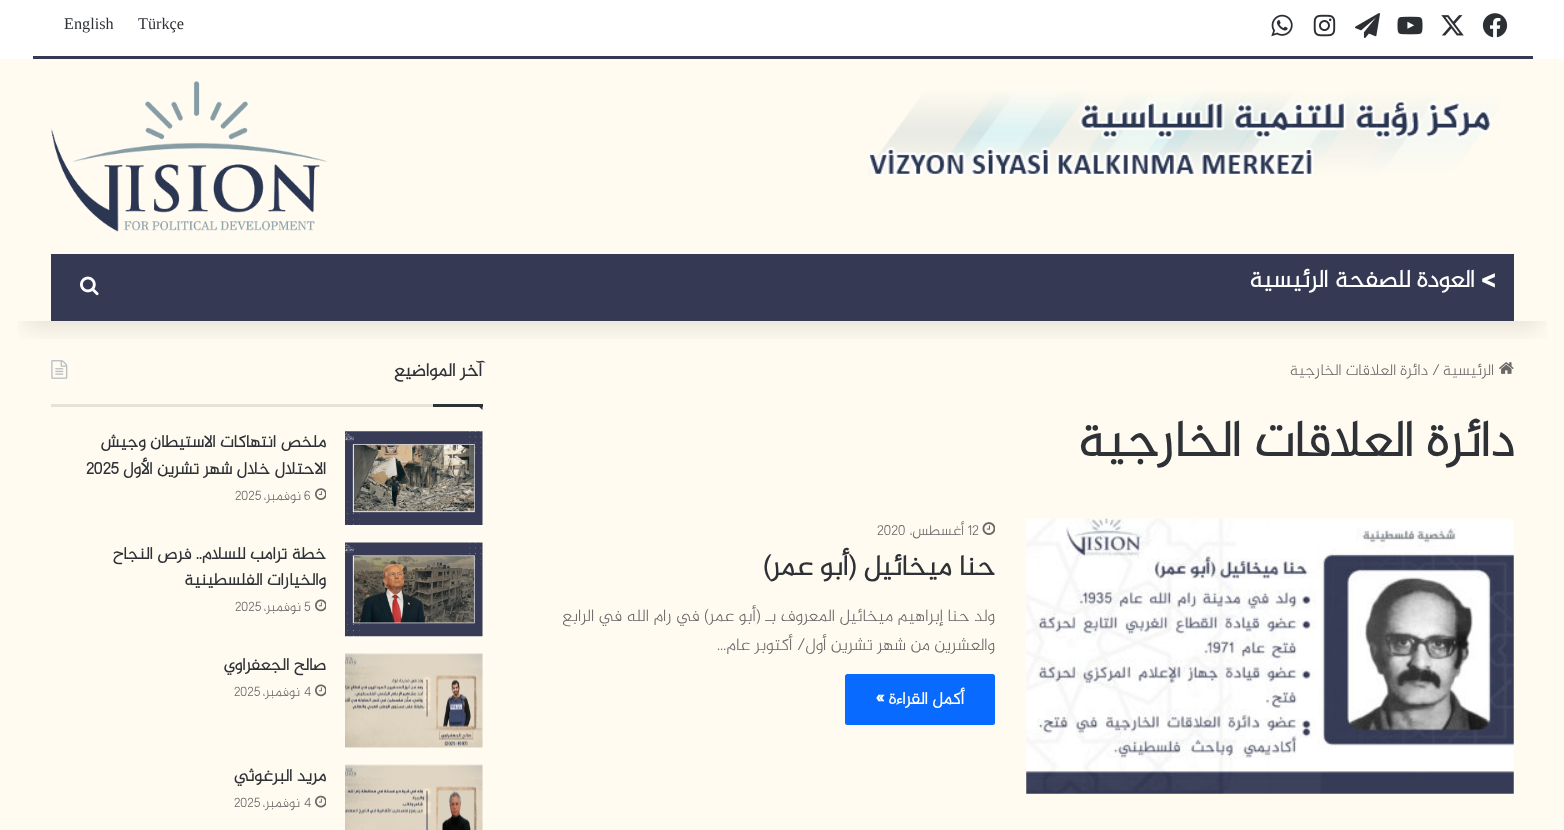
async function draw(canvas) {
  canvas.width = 1564
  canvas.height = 830
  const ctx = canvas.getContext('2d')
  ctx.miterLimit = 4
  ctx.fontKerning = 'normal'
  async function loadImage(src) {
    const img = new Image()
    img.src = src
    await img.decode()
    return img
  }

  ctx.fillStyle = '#fffbf1'
  ctx.fillRect(0, 0, 1564, 830)
  ctx.drawImage(await loadImage('image9.png'), 1499, 362, 15, 12)
  ctx.drawImage(await loadImage('image12.png'), 51, 360, 17, 19)
  ctx.save()
  ctx.beginPath()
  ctx.rect(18, 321, 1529, 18)
  ctx.clip()
  ctx.fillStyle = '#0000001a'
  ctx.filter = 'blur(12.5px)'
  ctx.beginPath()
  ctx.rect(25, 56, 1515, 272)
  ctx.fill()
  ctx.filter = 'none'
  ctx.restore()
  ctx.fillStyle = '#fff'
  ctx.fillRect(0, 0, 1564, 59)
  ctx.fillStyle = '#353954'
  ctx.fillRect(33, 56, 1500, 3)
  ctx.drawImage(await loadImage('image0.png'), 1482, 13, 26, 25)
  ctx.drawImage(await loadImage('image1.png'), 1441, 15, 23, 21)
  ctx.drawImage(await loadImage('image2.png'), 1397, 16, 26, 19)
  ctx.drawImage(await loadImage('image3.png'), 1355, 13, 25, 25)
  ctx.drawImage(await loadImage('image4.png'), 1313, 14, 23, 23)
  ctx.drawImage(await loadImage('image5.png'), 1271, 14, 22, 23)
  ctx.font = '16.25px Liberation Serif'
  ctx.fillStyle = '#2e3136'
  ctx.fillText('Türkçe', 138, 29)
  ctx.fillText('English', 64, 29)
  ctx.drawImage(await loadImage('image6.png'), 867, 91, 633, 86)
  ctx.drawImage(await loadImage('image7.png'), 51, 81, 276, 151)
  ctx.fillStyle = '#353954'
  ctx.fillRect(51, 254, 1463, 67)
  ctx.direction = 'rtl'
  ctx.font = 'bold 25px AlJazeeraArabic'
  ctx.fillStyle = '#fff'
  ctx.fillText('> العودة للصفحة الرئيسية', 1496, 287)
  ctx.drawImage(await loadImage('image8.png'), 80, 276, 19, 20)
  ctx.font = '300 16.25px AlJazeeraArabic'
  ctx.fillStyle = '#686767'
  ctx.fillText('الرئيسية', 1494, 375)
  ctx.direction = 'ltr'
  ctx.fillText('/', 1432, 375)
  ctx.direction = 'rtl'
  ctx.fillText('دائرة العلاقات الخارجية', 1428, 375)
  ctx.font = 'bold 51.25px AlJazeeraArabic'
  ctx.fillStyle = '#2e3136'
  ctx.fillText('دائرة العلاقات الخارجية', 1514, 456)
  ctx.drawImage(await loadImage('image10.png'), 1026, 518, 488, 276)
  ctx.drawImage(await loadImage('image11.png'), 982, 522, 13, 13)
  ctx.direction = 'ltr'
  ctx.font = '300 15px AlJazeeraArabic'
  ctx.fillStyle = '#686767'
  ctx.fillText('12', 968, 535)
  ctx.direction = 'rtl'
  ctx.fillText('أغسطس،', 964, 535)
  ctx.direction = 'ltr'
  ctx.fillText('2020', 877, 535)
  ctx.direction = 'rtl'
  ctx.font = 'bold 28.75px AlJazeeraArabic'
  ctx.fillStyle = '#2e3136'
  ctx.fillText('حنا ميخائيل (أبو عمر)', 995, 575)
  ctx.font = '300 17.5px AlJazeeraArabic'
  ctx.fillStyle = '#686767'
  ctx.fillText('ولد حنا إبراهيم ميخائيل المعروف بـ (أبو عمر) في رام الله في الرابع', 995, 621)
  ctx.fillText('والعشرين من شهر تشرين أول/ أكتوبر عام…', 995, 650)
  ctx.fillStyle = '#086aff'
  ctx.beginPath()
  ctx.roundRect(845, 674, 150, 51, 2.5)
  ctx.fill()
  ctx.font = 'bold 17.5px AlJazeeraArabic'
  ctx.fillStyle = '#fff'
  ctx.fillText('أكمل القراءة »', 964, 704)
  ctx.fillStyle = '#e6e2d9'
  ctx.fillRect(51, 404, 382, 3)
  ctx.font = 'bold 18.75px AlJazeeraArabic'
  ctx.fillStyle = '#2e3136'
  ctx.fillText('آخر المواضيع', 482, 376)
  ctx.beginPath()
  ctx.moveTo(476, 404)
  ctx.lineTo(482.5, 404)
  ctx.lineTo(482.5, 410)
  ctx.closePath()
  ctx.fill()
  ctx.fillRect(433, 404, 50, 3)
  ctx.drawImage(await loadImage('image13.png'), 345, 431, 138, 94)
  ctx.font = 'bold 17.5px AlJazeeraArabic'
  ctx.fillText('ملخص انتهاكات الاستيطان وجيش', 326, 447)
  ctx.fillText('الاحتلال خلال شهر تشرين الأول', 326, 474)
  ctx.direction = 'ltr'
  ctx.fillText('2025', 86, 474)
  ctx.drawImage(await loadImage('image14.png'), 315, 488, 11, 12)
  ctx.font = '300 14px AlJazeeraArabic'
  ctx.fillStyle = '#686767'
  ctx.fillText('6', 304, 500)
  ctx.direction = 'rtl'
  ctx.fillText('نوفمبر،', 301, 500)
  ctx.direction = 'ltr'
  ctx.fillText('2025', 235, 500)
  ctx.drawImage(await loadImage('image15.png'), 345, 542, 138, 95)
  ctx.direction = 'rtl'
  ctx.font = 'bold 17.5px AlJazeeraArabic'
  ctx.fillStyle = '#2e3136'
  ctx.fillText('خطة ترامب للسلام.. فرص النجاح', 326, 559)
  ctx.fillText('والخيارات الفلسطينية', 326, 585)
  ctx.drawImage(await loadImage('image16.png'), 315, 599, 11, 13)
  ctx.direction = 'ltr'
  ctx.font = '300 14px AlJazeeraArabic'
  ctx.fillStyle = '#686767'
  ctx.fillText('5', 304, 611)
  ctx.direction = 'rtl'
  ctx.fillText('نوفمبر،', 301, 611)
  ctx.direction = 'ltr'
  ctx.fillText('2025', 235, 611)
  ctx.drawImage(await loadImage('image17.png'), 345, 653, 138, 95)
  ctx.direction = 'rtl'
  ctx.font = 'bold 17.5px AlJazeeraArabic'
  ctx.fillStyle = '#2e3136'
  ctx.fillText('صالح الجعفراوي', 326, 670)
  ctx.drawImage(await loadImage('image16.png'), 315, 684, 11, 13)
  ctx.direction = 'ltr'
  ctx.font = '300 14px AlJazeeraArabic'
  ctx.fillStyle = '#686767'
  ctx.fillText('4', 304, 696)
  ctx.direction = 'rtl'
  ctx.fillText('نوفمبر،', 300, 696)
  ctx.direction = 'ltr'
  ctx.fillText('2025', 234, 696)
  ctx.drawImage(await loadImage('image18.png'), 345, 764, 138, 66)
  ctx.direction = 'rtl'
  ctx.font = 'bold 17.5px AlJazeeraArabic'
  ctx.fillStyle = '#2e3136'
  ctx.fillText('مريد البرغوثي', 326, 781)
  ctx.drawImage(await loadImage('image19.png'), 315, 795, 11, 13)
  ctx.direction = 'ltr'
  ctx.font = '300 14px AlJazeeraArabic'
  ctx.fillStyle = '#686767'
  ctx.fillText('4', 304, 807)
  ctx.direction = 'rtl'
  ctx.fillText('نوفمبر،', 300, 807)
  ctx.direction = 'ltr'
  ctx.fillText('2025', 234, 807)
}

draw(document.querySelector('canvas'))
